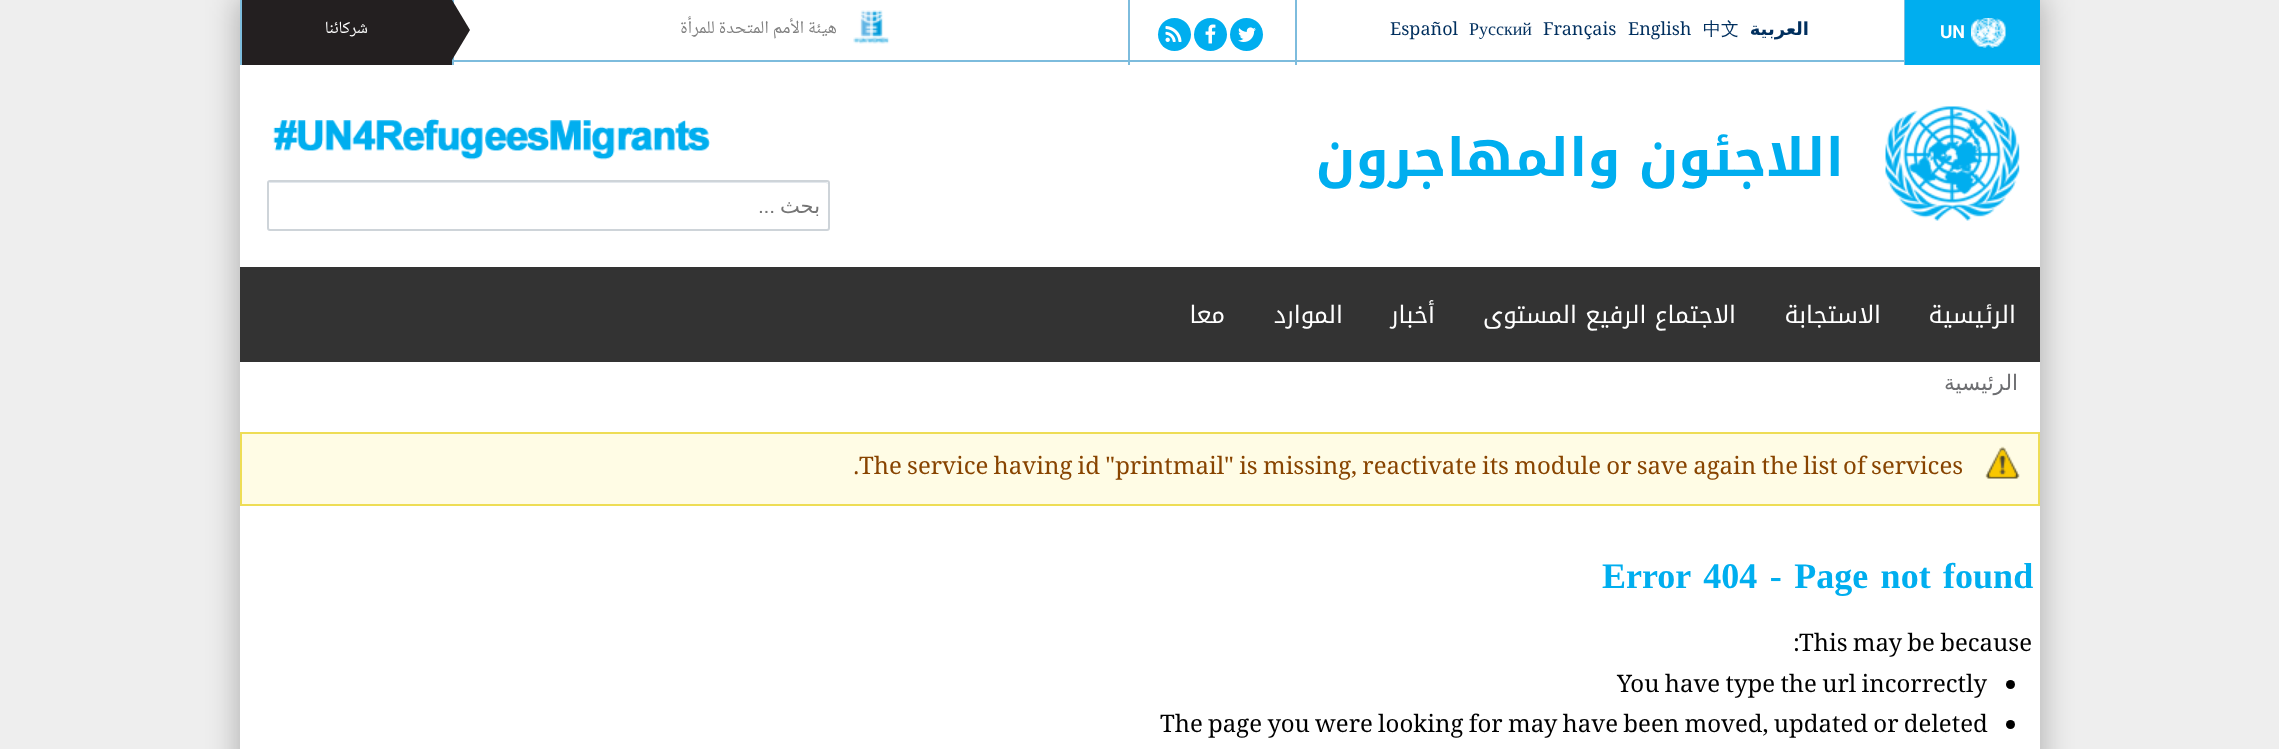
async function draw(canvas) {
  canvas.width = 2279
  canvas.height = 749
  const ctx = canvas.getContext('2d')
  ctx.miterLimit = 4
  ctx.fontKerning = 'normal'
  async function loadImage(src) {
    const img = new Image()
    img.src = src
    await img.decode()
    return img
  }

  ctx.fillStyle = '#eee'
  ctx.fillRect(0, 0, 2279, 749)
  ctx.fillStyle = '#00000040'
  ctx.filter = 'blur(15px)'
  ctx.beginPath()
  ctx.rect(237, -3, 1806, 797)
  ctx.fill()
  ctx.filter = 'none'
  ctx.fillStyle = '#fff'
  ctx.fillRect(240, 0, 1800, 749)
  ctx.fillStyle = '#7dbcdd'
  ctx.fillRect(454, 60, 1450, 2)
  ctx.fillStyle = '#231f20'
  ctx.fillRect(242, 0, 210, 65)
  ctx.fillStyle = '#7dbcdd'
  ctx.fillRect(240, 0, 2, 65)
  ctx.direction = 'rtl'
  ctx.font = '17px Noto Naskh Arabic'
  ctx.fillStyle = '#fff'
  ctx.fillText('شركائنا', 368, 33)
  ctx.fillStyle = '#7dbcdd'
  ctx.fillRect(452, 0, 2, 65)
  ctx.fillStyle = '#231f20'
  ctx.beginPath()
  ctx.moveTo(452, 60)
  ctx.lineTo(452, 0)
  ctx.lineTo(470, 30)
  ctx.closePath()
  ctx.fill()
  ctx.font = '18px Noto Naskh Arabic'
  ctx.fillStyle = '#808080'
  ctx.fillText('هيئة الأمم المتحدة للمرأة', 837, 33)
  ctx.drawImage(await loadImage('image0.png'), 853, 10, 37, 34)
  ctx.fillStyle = '#7dbcdd'
  ctx.fillRect(1128, 0, 2, 65)
  ctx.fillStyle = '#00aeef'
  ctx.beginPath()
  ctx.arc(1174.5, 34.5, 16.5, 0, 2 * Math.PI)
  ctx.fill()
  ctx.drawImage(await loadImage('image1.png'), 1165, 26, 17, 16)
  ctx.beginPath()
  ctx.arc(1210.5, 34.5, 16.5, 0, 2 * Math.PI)
  ctx.fill()
  ctx.drawImage(await loadImage('image2.png'), 1205, 24, 11, 20)
  ctx.beginPath()
  ctx.arc(1246.5, 34.5, 16.5, 0, 2 * Math.PI)
  ctx.fill()
  ctx.drawImage(await loadImage('image3.png'), 1238, 27, 18, 15)
  ctx.fillStyle = '#7dbcdd'
  ctx.fillRect(1295, 0, 2, 65)
  ctx.direction = 'ltr'
  ctx.fillStyle = '#002f5e'
  ctx.fillText('Español', 1390, 35)
  ctx.font = '18px Liberation Serif'
  ctx.fillText('Русский', 1469, 35)
  ctx.font = '18px Noto Naskh Arabic'
  ctx.fillText('Français', 1543, 35)
  ctx.fillText('English', 1628, 35)
  ctx.font = '500 18px WenQuanYi Zen Hei'
  ctx.fillText('中文', 1703, 35)
  ctx.direction = 'rtl'
  ctx.font = 'bold 18px DejaVu Sans'
  ctx.fillText('العربية', 1809, 35)
  ctx.fillStyle = '#7dbcdd'
  ctx.fillRect(1904, 0, 1, 65)
  ctx.fillStyle = '#00aeef'
  ctx.fillRect(1905, 0, 135, 65)
  ctx.direction = 'ltr'
  ctx.font = 'bold 18px Roboto'
  ctx.fillStyle = '#fff'
  ctx.fillText('UN', 1940, 38)
  ctx.drawImage(await loadImage('image4.png'), 1971, 18, 35, 30)
  ctx.drawImage(await loadImage('image5.png'), 273, 118, 437, 42)
  ctx.direction = 'rtl'
  ctx.font = 'bold 52.75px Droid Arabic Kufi'
  ctx.fillStyle = '#00aeef'
  ctx.fillText('اللاجئون والمهاجرون', 1844, 176)
  ctx.drawImage(await loadImage('image6.png'), 1885, 106, 135, 115)
  ctx.fillStyle = '#e3e8ed'
  ctx.beginPath()
  ctx.moveTo(270, 183)
  ctx.lineTo(826, 183)
  ctx.lineTo(828, 184)
  ctx.bezierCurveTo(828, 183, 827, 182, 826, 182)
  ctx.lineTo(270, 182)
  ctx.bezierCurveTo(270, 182, 269, 183, 269, 183)
  ctx.closePath()
  ctx.fill()
  ctx.beginPath()
  ctx.roundRect(268, 181, 561, 49, 2)
  ctx.strokeStyle = '#ced4d9'
  ctx.lineWidth = 2
  ctx.stroke()
  ctx.font = '21px Roboto'
  ctx.fillStyle = '#757575'
  ctx.fillText('...', 775, 213)
  ctx.font = '21px DejaVu Sans'
  ctx.fillText('بحث', 820, 213)
  ctx.fillStyle = '#333'
  ctx.fillRect(240, 267, 1800, 95)
  ctx.font = '24px Droid Arabic Kufi'
  ctx.fillStyle = '#fff'
  ctx.fillText('معا', 1225, 323)
  ctx.fillText('الموارد', 1343, 323)
  ctx.fillText('أخبار', 1435, 323)
  ctx.fillText('الاجتماع الرفيع المستوى', 1736, 323)
  ctx.fillText('الاستجابة', 1881, 323)
  ctx.fillText('الرئيسية', 2016, 323)
  ctx.font = '21.5px DejaVu Sans'
  ctx.fillStyle = '#6d6e71'
  ctx.fillText('الرئيسية', 2018, 390)
  ctx.fillStyle = '#fffce5'
  ctx.fillRect(242, 434, 1796, 70)
  ctx.drawImage(await loadImage('image7.png'), 1985, 446, 35, 33)
  ctx.strokeStyle = '#ed5'
  ctx.strokeRect(241, 433, 1798, 72)
  ctx.direction = 'ltr'
  ctx.font = '24px Noto Naskh Arabic'
  ctx.fillStyle = '#840'
  ctx.fillText('.', 853, 474)
  ctx.fillText('The service having id "printmail" is missing, reactivate its module or save again the list of services', 859, 474)
  ctx.wordSpacing = '3.5px'
  ctx.font = 'bold 36px Liberation Serif'
  ctx.fillStyle = '#00aeef'
  ctx.fillText('Error 404 - Page not found', 1602, 588)
  ctx.wordSpacing = '0px'
  ctx.font = '24px Noto Naskh Arabic'
  ctx.fillStyle = '#000'
  ctx.fillText(':', 1793, 651)
  ctx.fillText('This may be because', 1799, 651)
  ctx.fillText('You have type the url incorrectly', 1617, 692)
  ctx.beginPath()
  ctx.arc(2010.5, 684.5, 4.5, 0, 2 * Math.PI)
  ctx.fill()
  ctx.fillText('The page you were looking for may have been moved, updated or deleted', 1160, 732)
  ctx.beginPath()
  ctx.arc(2010.5, 724.5, 4.5, 0, 2 * Math.PI)
  ctx.fill()
}

draw(document.querySelector('canvas'))
